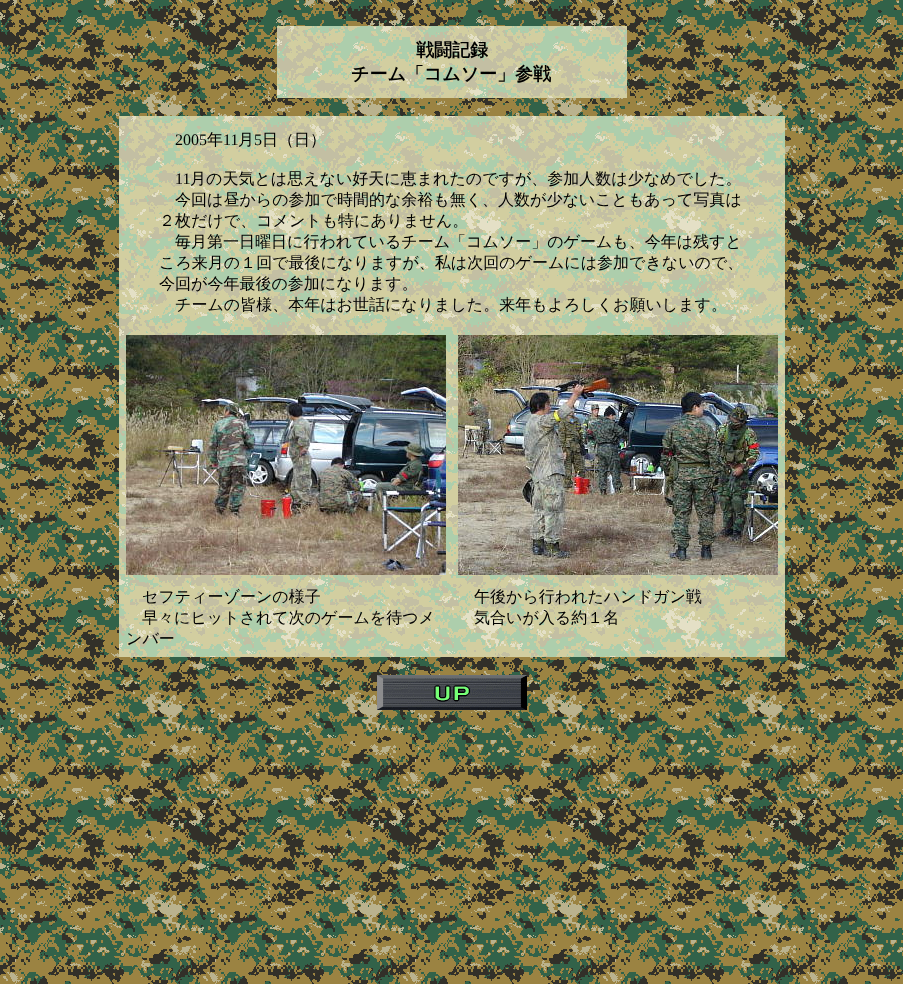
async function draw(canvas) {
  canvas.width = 903
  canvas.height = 984
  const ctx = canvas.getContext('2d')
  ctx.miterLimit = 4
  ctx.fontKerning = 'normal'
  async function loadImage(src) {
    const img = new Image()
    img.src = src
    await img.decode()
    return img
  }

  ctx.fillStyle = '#fff'
  ctx.fillRect(0, 0, 903, 984)
  ctx.drawImage(await loadImage('image0.png'), 0, 0, 903, 984)
  ctx.drawImage(await loadImage('image1.png'), 277, 26, 350, 72)
  ctx.font = 'bold 18px WenQuanYi Zen Hei'
  ctx.fillStyle = '#000'
  ctx.fillText('戦闘記録', 416, 56)
  ctx.fillText('チーム「コムソー」参戦', 351, 80)
  ctx.drawImage(await loadImage('image2.png'), 119, 116, 666, 541)
  ctx.font = '16px Liberation Serif'
  ctx.fillText('2005', 175, 145)
  ctx.font = '500 16px WenQuanYi Zen Hei'
  ctx.fillText('年', 207, 145)
  ctx.font = '16px Liberation Serif'
  ctx.fillText('11', 223, 145)
  ctx.font = '500 16px WenQuanYi Zen Hei'
  ctx.fillText('月', 238, 145)
  ctx.font = '16px Liberation Serif'
  ctx.fillText('5', 254, 145)
  ctx.font = '500 16px WenQuanYi Zen Hei'
  ctx.fillText('日（日）', 262, 145)
  ctx.font = '16px Liberation Serif'
  ctx.fillText('11', 175, 184)
  ctx.font = '500 16px WenQuanYi Zen Hei'
  ctx.fillText('月の天気とは思えない好天に恵まれたのですが、参加人数は少なめでした。', 190, 184)
  ctx.fillText('今回は昼からの参加で時間的な余裕も無く、人数が少ないこともあって写真は', 175, 205)
  ctx.fillText('２枚だけで、コメントも特にありません。', 159, 226)
  ctx.fillText('毎月第一日曜日に行われているチーム「コムソー」のゲームも、今年は残すと', 175, 247)
  ctx.fillText('ころ来月の１回で最後になりますが、私は次回のゲームには参加できないので、', 159, 268)
  ctx.fillText('今回が今年最後の参加になります。', 159, 289)
  ctx.fillText('チームの皆様、本年はお世話になりました。来年もよろしくお願いします。', 175, 310)
  ctx.drawImage(await loadImage('image3.png'), 126, 335, 320, 240)
  ctx.drawImage(await loadImage('image4.png'), 458, 335, 320, 240)
  ctx.fillText('セフティーゾーンの様子', 142, 602)
  ctx.fillText('早々にヒットされて次のゲームを待つメ', 142, 623)
  ctx.fillText('ンバー', 126, 644)
  ctx.fillText('午後から行われたハンドガン戦', 474, 602)
  ctx.fillText('気合いが入る約１名', 474, 623)
  ctx.drawImage(await loadImage('image5.png'), 377, 675, 150, 35)
}

draw(document.querySelector('canvas'))
